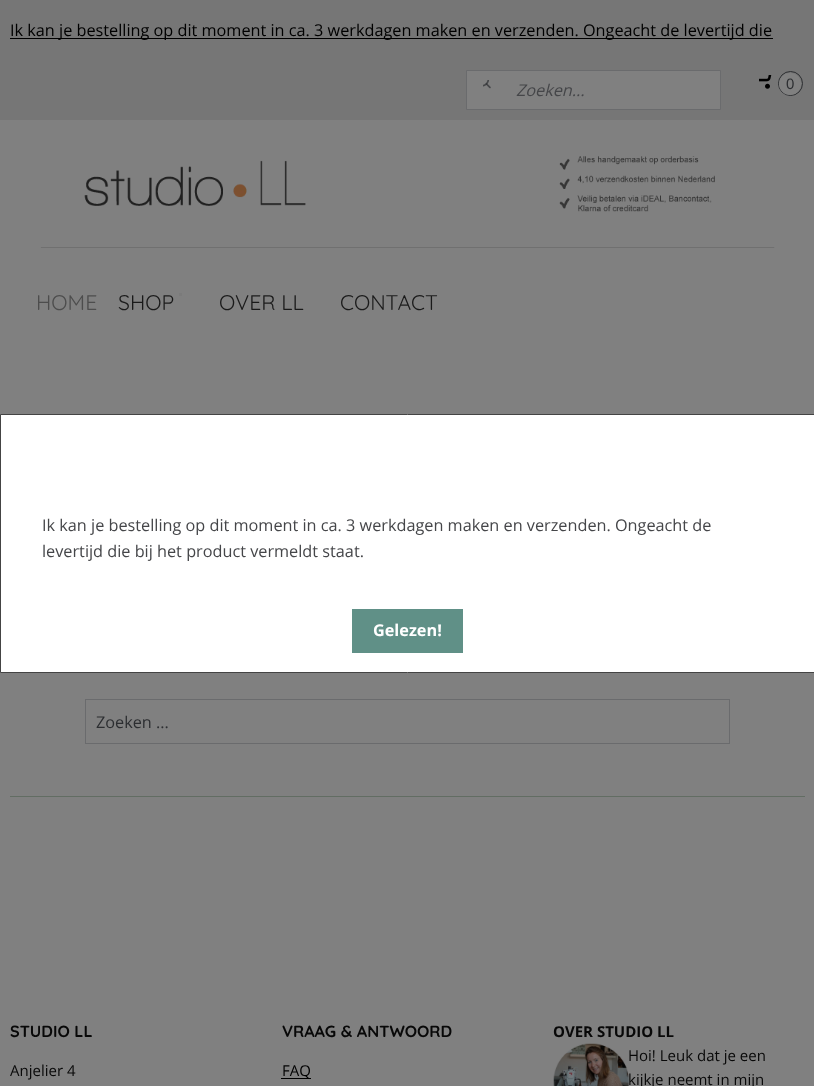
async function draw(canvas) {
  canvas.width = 814
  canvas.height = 1086
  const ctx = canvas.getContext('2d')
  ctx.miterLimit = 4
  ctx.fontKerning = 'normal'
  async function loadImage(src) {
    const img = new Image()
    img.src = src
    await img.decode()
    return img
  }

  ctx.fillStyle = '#808080'
  ctx.fillRect(0, 0, 814, 1086)
  ctx.fillStyle = '#767676'
  ctx.fillRect(0, 0, 814, 120)
  ctx.fillStyle = '#000'
  ctx.fillRect(10, 38, 763, 1)
  ctx.font = '16.25px Open Sans'
  ctx.fillText('Ik kan je bestelling op dit moment in ca. 3 werkdagen maken en verzenden. Ongeacht de levertijd die', 10, 36)
  ctx.fillStyle = '#808080'
  ctx.beginPath()
  ctx.rect(466.5, 70.5, 254, 39)
  ctx.fill()
  ctx.strokeStyle = '#6a6b6d'
  ctx.stroke()
  ctx.drawImage(await loadImage('image0.png'), 483, 80, 8, 9)
  ctx.font = 'italic 16.25px Open Sans'
  ctx.fillStyle = '#454649'
  ctx.fillText('Zoeken...', 516, 96)
  ctx.drawImage(await loadImage('image1.png'), 759, 75, 13, 14)
  ctx.beginPath()
  ctx.arc(790.5, 83.5, 12, 0, 2 * Math.PI)
  ctx.strokeStyle = '#2c2e31'
  ctx.stroke()
  ctx.fillStyle = '#808080'
  ctx.beginPath()
  ctx.arc(790, 84, 11, 0, 2 * Math.PI)
  ctx.fill()
  ctx.font = '15px Liberation Sans'
  ctx.fillStyle = '#2c2e31'
  ctx.fillText('0', 786, 89)
  ctx.drawImage(await loadImage('image2.png'), 40, 156, 735, 92)
  ctx.font = '21.25px Quicksand'
  ctx.fillStyle = '#4d4d4d'
  ctx.fillText('HOME', 36, 310)
  ctx.fillStyle = '#1a1a1a'
  ctx.fillText('SHOP', 118, 310)
  ctx.fillStyle = '#7b7b7b'
  ctx.fillRect(179, 293, 3, 3)
  ctx.fillStyle = '#1a1a1a'
  ctx.fillText('OVER LL', 219, 310)
  ctx.fillText('CONTACT', 340, 310)
  ctx.fillStyle = '#626d63'
  ctx.fillRect(10, 796, 795, 1)
  ctx.strokeStyle = '#6a6b6d'
  ctx.strokeRect(85.5, 699.5, 644, 44)
  ctx.font = '16.25px Open Sans'
  ctx.fillStyle = '#2c2e31'
  ctx.fillText('Zoeken ...', 96, 728)
  ctx.font = 'bold 16.25px Quicksand'
  ctx.fillStyle = '#080808'
  ctx.fillText('STUDIO LL', 10, 1037)
  ctx.font = '15px Open Sans'
  ctx.fillText('Anjelier 4', 10, 1076)
  ctx.font = 'bold 16.25px Quicksand'
  ctx.fillText('VRAAG & ANTWOORD', 282, 1037)
  ctx.fillStyle = '#000'
  ctx.fillRect(281, 1078, 30, 1)
  ctx.font = '15px Open Sans'
  ctx.fillText('FAQ', 282, 1076)
  ctx.font = 'bold 15px Open Sans'
  ctx.fillStyle = '#080808'
  ctx.fillText('OVER STUDIO LL', 553, 1037)
  ctx.drawImage(await loadImage('image3.png'), 553, 1043, 76, 43)
  ctx.font = '15px Open Sans'
  ctx.fillText('Hoi! Leuk dat je een', 628, 1061)
  ctx.fillText('kijkje neemt in mijn', 628, 1085)
  ctx.fillStyle = '#fff'
  ctx.beginPath()
  ctx.rect(0.5, 414.5, 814, 258)
  ctx.fill()
  ctx.strokeStyle = '#444'
  ctx.stroke()
  ctx.font = '16.25px Open Sans'
  ctx.fillStyle = '#454649'
  ctx.fillText('Ik kan je bestelling op dit moment in ca. 3 werkdagen maken en verzenden. Ongeacht de', 42, 531)
  ctx.fillText('levertijd die bij het product vermeldt staat.', 42, 557)
  ctx.fillStyle = '#609087'
  ctx.fillRect(352, 609, 111, 44)
  ctx.font = 'bold 16.25px Open Sans'
  ctx.fillStyle = '#fff'
  ctx.fillText('Gelezen!', 373, 636)
}

draw(document.querySelector('canvas'))
